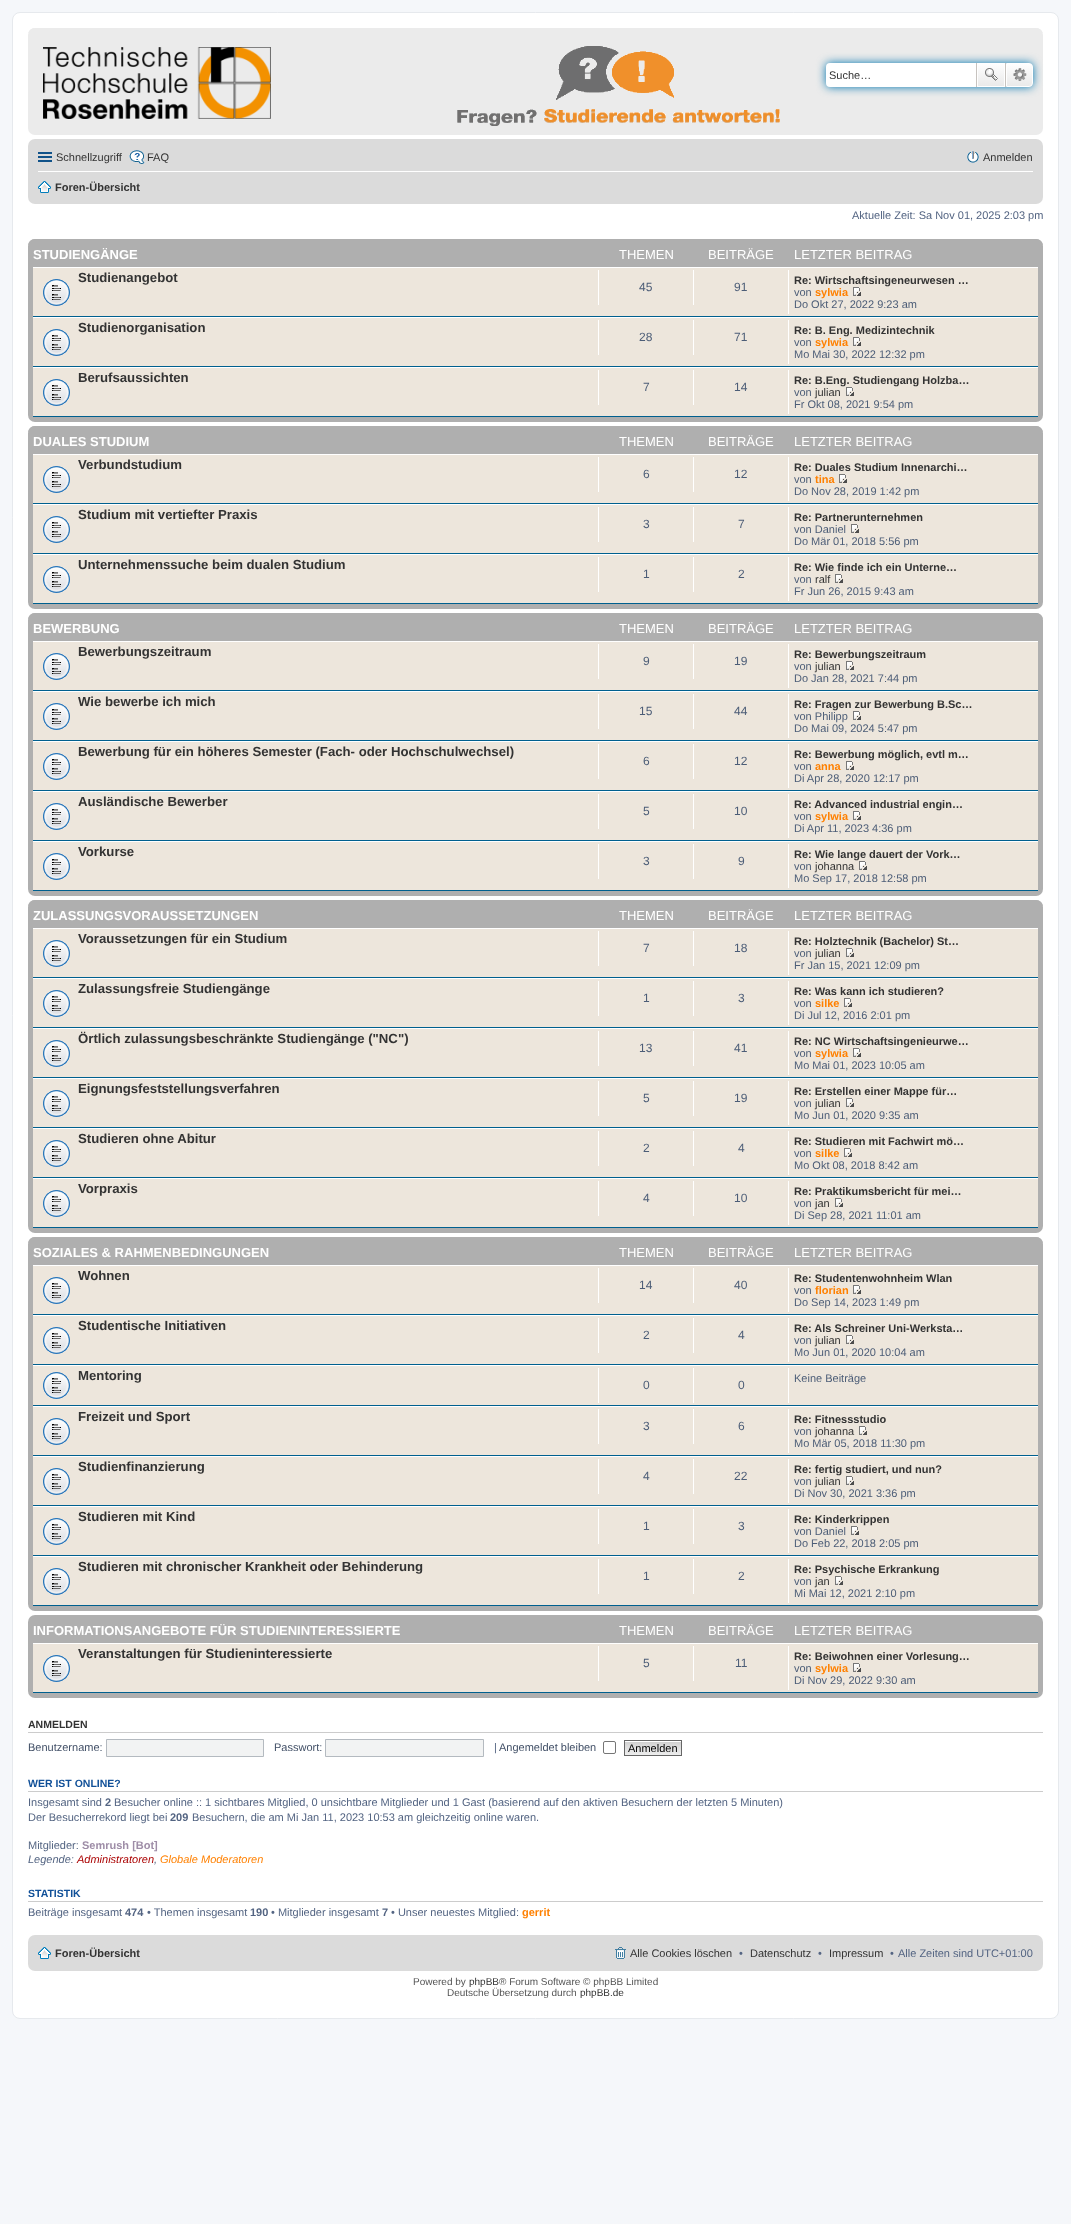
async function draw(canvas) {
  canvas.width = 1071
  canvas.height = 2224
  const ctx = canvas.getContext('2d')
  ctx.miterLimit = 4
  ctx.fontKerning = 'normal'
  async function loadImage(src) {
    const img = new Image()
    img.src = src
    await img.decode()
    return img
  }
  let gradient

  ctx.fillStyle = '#f5f7fa'
  ctx.fillRect(0, 0, 1071, 2224)
  ctx.fillStyle = '#fff'
  ctx.beginPath()
  ctx.roundRect(12.5, 12.5, 1046, 2006, 7.5)
  ctx.fill()
  ctx.strokeStyle = '#e6e9ed'
  ctx.stroke()
  ctx.fillStyle = '#ebebeb'
  ctx.beginPath()
  ctx.roundRect(28, 28, 1015, 107, 7)
  ctx.fill()
  ctx.drawImage(await loadImage('image0.png'), 28, 28, 1015, 5)
  ctx.drawImage(await loadImage('image1.png'), 43, 46, 737, 80)
  ctx.fillStyle = '#0075b0'
  ctx.filter = 'blur(5px)'
  ctx.beginPath()
  ctx.roundRect(826, 63, 207, 24, 4)
  ctx.fill()
  ctx.filter = 'none'
  ctx.fillStyle = '#fff'
  ctx.beginPath()
  ctx.roundRect(826, 63, 150, 24, [4, 0, 0, 4])
  ctx.fill()
  ctx.font = '11px Liberation Sans'
  ctx.fillStyle = '#333'
  ctx.fillText('Suche…', 829, 79)
  gradient = ctx.createLinearGradient(991, 63, 991, 87)
  gradient.addColorStop(0, '#fff')
  gradient.addColorStop(1, '#e9e9e9')
  ctx.fillStyle = gradient
  ctx.fillRect(978, 64, 26, 22)
  ctx.strokeStyle = '#fff'
  ctx.strokeRect(977.5, 63.5, 27, 23)
  ctx.fillStyle = '#c7c3bf'
  ctx.fillRect(1005, 63, 1, 24)
  ctx.fillRect(976, 63, 1, 24)
  ctx.drawImage(await loadImage('image2.png'), 985, 68, 13, 13)
  gradient = ctx.createLinearGradient(1020, 63, 1020, 87)
  gradient.addColorStop(0, '#fff')
  gradient.addColorStop(1, '#e9e9e9')
  ctx.fillStyle = gradient
  ctx.beginPath()
  ctx.roundRect(1006.5, 63.5, 26, 23, [0, 3.5, 3.5, 0])
  ctx.fill()
  ctx.stroke()
  ctx.drawImage(await loadImage('image3.png'), 1013, 68, 14, 13)
  ctx.fillStyle = '#dbdbdb'
  ctx.beginPath()
  ctx.roundRect(28, 139, 1015, 65, 7)
  ctx.fill()
  ctx.fillStyle = '#105289'
  ctx.fillRect(38, 152, 14, 2)
  ctx.fillRect(38, 156, 14, 2)
  ctx.fillRect(38, 160, 14, 2)
  ctx.fillStyle = '#333'
  ctx.fillText('Schnellzugriff', 56, 161)
  ctx.drawImage(await loadImage('image4.png'), 129, 150, 16, 14)
  ctx.fillText('FAQ', 147, 161)
  ctx.drawImage(await loadImage('image5.png'), 967, 151, 12, 12)
  ctx.fillText('Anmelden', 983, 161)
  ctx.fillStyle = '#fff'
  ctx.fillRect(38, 171, 995, 1)
  ctx.drawImage(await loadImage('image6.png'), 38, 181, 13, 12)
  ctx.font = 'bold 11px Liberation Sans'
  ctx.fillStyle = '#333'
  ctx.fillText('Foren-Übersicht', 55, 191)
  ctx.font = '11px Liberation Sans'
  ctx.fillStyle = '#536482'
  ctx.fillText('Aktuelle Zeit: Sa Nov 01, 2025 2:03 pm', 852, 219)
  ctx.fillStyle = '#afafaf'
  ctx.beginPath()
  ctx.roundRect(28, 239, 1015, 183, 7)
  ctx.fill()
  ctx.drawImage(await loadImage('image7.png'), 28, 239, 1015, 6)
  ctx.font = 'bold 13px Liberation Sans'
  ctx.fillStyle = '#fff'
  ctx.fillText('STUDIENGÄNGE', 33, 259)
  ctx.font = '13px Liberation Sans'
  ctx.fillText('THEMEN', 619, 259)
  ctx.fillText('BEITRÄGE', 708, 259)
  ctx.fillText('LETZTER BEITRAG', 794, 259)
  ctx.fillStyle = '#ede6dc'
  ctx.fillRect(33, 268, 1005, 148)
  ctx.fillStyle = '#fff'
  ctx.fillRect(33, 267, 1005, 1)
  ctx.fillStyle = '#00608f'
  ctx.fillRect(33, 316, 1005, 1)
  ctx.drawImage(await loadImage('image8.png'), 43, 279, 27, 27)
  ctx.font = 'bold 13.2px Liberation Sans'
  ctx.fillStyle = '#333'
  ctx.fillText('Studienangebot', 78, 282)
  ctx.fillStyle = '#fff'
  ctx.fillRect(598, 270, 1, 35)
  ctx.font = '12px Liberation Sans'
  ctx.fillStyle = '#4c5d77'
  ctx.fillText('45', 639, 291)
  ctx.fillStyle = '#fff'
  ctx.fillRect(693, 270, 1, 35)
  ctx.fillStyle = '#4c5d77'
  ctx.fillText('91', 734, 291)
  ctx.fillStyle = '#fff'
  ctx.fillRect(788, 270, 1, 44)
  ctx.font = 'bold 11px Liberation Sans'
  ctx.fillStyle = '#333'
  ctx.fillText('Re: Wirtschaftsingeneurwesen …', 794, 284)
  ctx.font = '11px Liberation Sans'
  ctx.fillStyle = '#4c5d77'
  ctx.fillText('von', 794, 296)
  ctx.font = 'bold 11px Liberation Sans'
  ctx.fillStyle = '#ff8000'
  ctx.fillText('sylwia', 815, 296)
  ctx.drawImage(await loadImage('image9.png'), 853, 287, 8, 9)
  ctx.font = '11px Liberation Sans'
  ctx.fillStyle = '#4c5d77'
  ctx.fillText('Do Okt 27, 2022 9:23 am', 794, 308)
  ctx.fillStyle = '#fff'
  ctx.fillRect(33, 317, 1005, 1)
  ctx.fillStyle = '#00608f'
  ctx.fillRect(33, 366, 1005, 1)
  ctx.drawImage(await loadImage('image8.png'), 43, 329, 27, 27)
  ctx.font = 'bold 13.2px Liberation Sans'
  ctx.fillStyle = '#333'
  ctx.fillText('Studienorganisation', 78, 332)
  ctx.fillStyle = '#fff'
  ctx.fillRect(598, 320, 1, 35)
  ctx.font = '12px Liberation Sans'
  ctx.fillStyle = '#4c5d77'
  ctx.fillText('28', 639, 341)
  ctx.fillStyle = '#fff'
  ctx.fillRect(693, 320, 1, 35)
  ctx.fillStyle = '#4c5d77'
  ctx.fillText('71', 734, 341)
  ctx.fillStyle = '#fff'
  ctx.fillRect(788, 320, 1, 44)
  ctx.font = 'bold 11px Liberation Sans'
  ctx.fillStyle = '#333'
  ctx.fillText('Re: B. Eng. Medizintechnik', 794, 334)
  ctx.font = '11px Liberation Sans'
  ctx.fillStyle = '#4c5d77'
  ctx.fillText('von', 794, 346)
  ctx.font = 'bold 11px Liberation Sans'
  ctx.fillStyle = '#ff8000'
  ctx.fillText('sylwia', 815, 346)
  ctx.drawImage(await loadImage('image9.png'), 853, 337, 8, 9)
  ctx.font = '11px Liberation Sans'
  ctx.fillStyle = '#4c5d77'
  ctx.fillText('Mo Mai 30, 2022 12:32 pm', 794, 358)
  ctx.fillStyle = '#fff'
  ctx.fillRect(33, 367, 1005, 1)
  ctx.fillStyle = '#00608f'
  ctx.fillRect(33, 416, 1005, 1)
  ctx.drawImage(await loadImage('image8.png'), 43, 379, 27, 27)
  ctx.font = 'bold 13.2px Liberation Sans'
  ctx.fillStyle = '#333'
  ctx.fillText('Berufsaussichten', 78, 382)
  ctx.fillStyle = '#fff'
  ctx.fillRect(598, 370, 1, 35)
  ctx.font = '12px Liberation Sans'
  ctx.fillStyle = '#4c5d77'
  ctx.fillText('7', 643, 391)
  ctx.fillStyle = '#fff'
  ctx.fillRect(693, 370, 1, 35)
  ctx.fillStyle = '#4c5d77'
  ctx.fillText('14', 734, 391)
  ctx.fillStyle = '#fff'
  ctx.fillRect(788, 370, 1, 44)
  ctx.font = 'bold 11px Liberation Sans'
  ctx.fillStyle = '#333'
  ctx.fillText('Re: B.Eng. Studiengang Holzba…', 794, 384)
  ctx.font = '11px Liberation Sans'
  ctx.fillStyle = '#4c5d77'
  ctx.fillText('von', 794, 396)
  ctx.fillStyle = '#333'
  ctx.fillText('julian', 815, 396)
  ctx.drawImage(await loadImage('image9.png'), 846, 387, 8, 9)
  ctx.fillStyle = '#4c5d77'
  ctx.fillText('Fr Okt 08, 2021 9:54 pm', 794, 408)
  ctx.fillStyle = '#afafaf'
  ctx.beginPath()
  ctx.roundRect(28, 426, 1015, 183, 7)
  ctx.fill()
  ctx.drawImage(await loadImage('image7.png'), 28, 426, 1015, 6)
  ctx.font = 'bold 13px Liberation Sans'
  ctx.fillStyle = '#fff'
  ctx.fillText('DUALES STUDIUM', 33, 446)
  ctx.font = '13px Liberation Sans'
  ctx.fillText('THEMEN', 619, 446)
  ctx.fillText('BEITRÄGE', 708, 446)
  ctx.fillText('LETZTER BEITRAG', 794, 446)
  ctx.fillStyle = '#ede6dc'
  ctx.fillRect(33, 455, 1005, 148)
  ctx.fillStyle = '#fff'
  ctx.fillRect(33, 454, 1005, 1)
  ctx.fillStyle = '#00608f'
  ctx.fillRect(33, 503, 1005, 1)
  ctx.drawImage(await loadImage('image8.png'), 43, 466, 27, 27)
  ctx.font = 'bold 13.2px Liberation Sans'
  ctx.fillStyle = '#333'
  ctx.fillText('Verbundstudium', 78, 469)
  ctx.fillStyle = '#fff'
  ctx.fillRect(598, 457, 1, 35)
  ctx.font = '12px Liberation Sans'
  ctx.fillStyle = '#4c5d77'
  ctx.fillText('6', 643, 478)
  ctx.fillStyle = '#fff'
  ctx.fillRect(693, 457, 1, 35)
  ctx.fillStyle = '#4c5d77'
  ctx.fillText('12', 734, 478)
  ctx.fillStyle = '#fff'
  ctx.fillRect(788, 457, 1, 44)
  ctx.font = 'bold 11px Liberation Sans'
  ctx.fillStyle = '#333'
  ctx.fillText('Re: Duales Studium Innenarchi…', 794, 471)
  ctx.font = '11px Liberation Sans'
  ctx.fillStyle = '#4c5d77'
  ctx.fillText('von', 794, 483)
  ctx.font = 'bold 11px Liberation Sans'
  ctx.fillStyle = '#ff8000'
  ctx.fillText('tina', 815, 483)
  ctx.drawImage(await loadImage('image9.png'), 839, 474, 8, 9)
  ctx.font = '11px Liberation Sans'
  ctx.fillStyle = '#4c5d77'
  ctx.fillText('Do Nov 28, 2019 1:42 pm', 794, 495)
  ctx.fillStyle = '#fff'
  ctx.fillRect(33, 504, 1005, 1)
  ctx.fillStyle = '#00608f'
  ctx.fillRect(33, 553, 1005, 1)
  ctx.drawImage(await loadImage('image8.png'), 43, 516, 27, 27)
  ctx.font = 'bold 13.2px Liberation Sans'
  ctx.fillStyle = '#333'
  ctx.fillText('Studium mit vertiefter Praxis', 78, 519)
  ctx.fillStyle = '#fff'
  ctx.fillRect(598, 507, 1, 35)
  ctx.font = '12px Liberation Sans'
  ctx.fillStyle = '#4c5d77'
  ctx.fillText('3', 643, 528)
  ctx.fillStyle = '#fff'
  ctx.fillRect(693, 507, 1, 35)
  ctx.fillStyle = '#4c5d77'
  ctx.fillText('7', 738, 528)
  ctx.fillStyle = '#fff'
  ctx.fillRect(788, 507, 1, 44)
  ctx.font = 'bold 11px Liberation Sans'
  ctx.fillStyle = '#333'
  ctx.fillText('Re: Partnerunternehmen', 794, 521)
  ctx.font = '11px Liberation Sans'
  ctx.fillStyle = '#4c5d77'
  ctx.fillText('von Daniel', 794, 533)
  ctx.drawImage(await loadImage('image9.png'), 851, 524, 8, 9)
  ctx.fillText('Do Mär 01, 2018 5:56 pm', 794, 545)
  ctx.fillStyle = '#fff'
  ctx.fillRect(33, 554, 1005, 1)
  ctx.fillStyle = '#00608f'
  ctx.fillRect(33, 603, 1005, 1)
  ctx.drawImage(await loadImage('image8.png'), 43, 566, 27, 27)
  ctx.font = 'bold 13.2px Liberation Sans'
  ctx.fillStyle = '#333'
  ctx.fillText('Unternehmenssuche beim dualen Studium', 78, 569)
  ctx.fillStyle = '#fff'
  ctx.fillRect(598, 557, 1, 35)
  ctx.font = '12px Liberation Sans'
  ctx.fillStyle = '#4c5d77'
  ctx.fillText('1', 643, 578)
  ctx.fillStyle = '#fff'
  ctx.fillRect(693, 557, 1, 35)
  ctx.fillStyle = '#4c5d77'
  ctx.fillText('2', 738, 578)
  ctx.fillStyle = '#fff'
  ctx.fillRect(788, 557, 1, 44)
  ctx.font = 'bold 11px Liberation Sans'
  ctx.fillStyle = '#333'
  ctx.fillText('Re: Wie finde ich ein Unterne…', 794, 571)
  ctx.font = '11px Liberation Sans'
  ctx.fillStyle = '#4c5d77'
  ctx.fillText('von', 794, 583)
  ctx.fillStyle = '#333'
  ctx.fillText('ralf', 815, 583)
  ctx.drawImage(await loadImage('image9.png'), 835, 574, 8, 9)
  ctx.fillStyle = '#4c5d77'
  ctx.fillText('Fr Jun 26, 2015 9:43 am', 794, 595)
  ctx.fillStyle = '#afafaf'
  ctx.beginPath()
  ctx.roundRect(28, 613, 1015, 283, 7)
  ctx.fill()
  ctx.drawImage(await loadImage('image7.png'), 28, 613, 1015, 6)
  ctx.font = 'bold 13px Liberation Sans'
  ctx.fillStyle = '#fff'
  ctx.fillText('BEWERBUNG', 33, 633)
  ctx.font = '13px Liberation Sans'
  ctx.fillText('THEMEN', 619, 633)
  ctx.fillText('BEITRÄGE', 708, 633)
  ctx.fillText('LETZTER BEITRAG', 794, 633)
  ctx.fillStyle = '#ede6dc'
  ctx.fillRect(33, 642, 1005, 248)
  ctx.fillStyle = '#fff'
  ctx.fillRect(33, 641, 1005, 1)
  ctx.fillStyle = '#00608f'
  ctx.fillRect(33, 690, 1005, 1)
  ctx.drawImage(await loadImage('image8.png'), 43, 653, 27, 27)
  ctx.font = 'bold 13.2px Liberation Sans'
  ctx.fillStyle = '#333'
  ctx.fillText('Bewerbungszeitraum', 78, 656)
  ctx.fillStyle = '#fff'
  ctx.fillRect(598, 644, 1, 35)
  ctx.font = '12px Liberation Sans'
  ctx.fillStyle = '#4c5d77'
  ctx.fillText('9', 643, 665)
  ctx.fillStyle = '#fff'
  ctx.fillRect(693, 644, 1, 35)
  ctx.fillStyle = '#4c5d77'
  ctx.fillText('19', 734, 665)
  ctx.fillStyle = '#fff'
  ctx.fillRect(788, 644, 1, 44)
  ctx.font = 'bold 11px Liberation Sans'
  ctx.fillStyle = '#333'
  ctx.fillText('Re: Bewerbungszeitraum', 794, 658)
  ctx.font = '11px Liberation Sans'
  ctx.fillStyle = '#4c5d77'
  ctx.fillText('von', 794, 670)
  ctx.fillStyle = '#333'
  ctx.fillText('julian', 815, 670)
  ctx.drawImage(await loadImage('image9.png'), 846, 661, 8, 9)
  ctx.fillStyle = '#4c5d77'
  ctx.fillText('Do Jan 28, 2021 7:44 pm', 794, 682)
  ctx.fillStyle = '#fff'
  ctx.fillRect(33, 691, 1005, 1)
  ctx.fillStyle = '#00608f'
  ctx.fillRect(33, 740, 1005, 1)
  ctx.drawImage(await loadImage('image8.png'), 43, 703, 27, 27)
  ctx.font = 'bold 13.2px Liberation Sans'
  ctx.fillStyle = '#333'
  ctx.fillText('Wie bewerbe ich mich', 78, 706)
  ctx.fillStyle = '#fff'
  ctx.fillRect(598, 694, 1, 35)
  ctx.font = '12px Liberation Sans'
  ctx.fillStyle = '#4c5d77'
  ctx.fillText('15', 639, 715)
  ctx.fillStyle = '#fff'
  ctx.fillRect(693, 694, 1, 35)
  ctx.fillStyle = '#4c5d77'
  ctx.fillText('44', 734, 715)
  ctx.fillStyle = '#fff'
  ctx.fillRect(788, 694, 1, 44)
  ctx.font = 'bold 11px Liberation Sans'
  ctx.fillStyle = '#333'
  ctx.fillText('Re: Fragen zur Bewerbung B.Sc…', 794, 708)
  ctx.font = '11px Liberation Sans'
  ctx.fillStyle = '#4c5d77'
  ctx.fillText('von Philipp', 794, 720)
  ctx.drawImage(await loadImage('image9.png'), 853, 711, 8, 9)
  ctx.fillText('Do Mai 09, 2024 5:47 pm', 794, 732)
  ctx.fillStyle = '#fff'
  ctx.fillRect(33, 741, 1005, 1)
  ctx.fillStyle = '#00608f'
  ctx.fillRect(33, 790, 1005, 1)
  ctx.drawImage(await loadImage('image8.png'), 43, 753, 27, 27)
  ctx.font = 'bold 13.2px Liberation Sans'
  ctx.fillStyle = '#333'
  ctx.fillText('Bewerbung für ein höheres Semester (Fach- oder Hochschulwechsel)', 78, 756)
  ctx.fillStyle = '#fff'
  ctx.fillRect(598, 744, 1, 35)
  ctx.font = '12px Liberation Sans'
  ctx.fillStyle = '#4c5d77'
  ctx.fillText('6', 643, 765)
  ctx.fillStyle = '#fff'
  ctx.fillRect(693, 744, 1, 35)
  ctx.fillStyle = '#4c5d77'
  ctx.fillText('12', 734, 765)
  ctx.fillStyle = '#fff'
  ctx.fillRect(788, 744, 1, 44)
  ctx.font = 'bold 11px Liberation Sans'
  ctx.fillStyle = '#333'
  ctx.fillText('Re: Bewerbung möglich, evtl m…', 794, 758)
  ctx.font = '11px Liberation Sans'
  ctx.fillStyle = '#4c5d77'
  ctx.fillText('von', 794, 770)
  ctx.font = 'bold 11px Liberation Sans'
  ctx.fillStyle = '#ff8000'
  ctx.fillText('anna', 815, 770)
  ctx.drawImage(await loadImage('image9.png'), 846, 761, 8, 9)
  ctx.font = '11px Liberation Sans'
  ctx.fillStyle = '#4c5d77'
  ctx.fillText('Di Apr 28, 2020 12:17 pm', 794, 782)
  ctx.fillStyle = '#fff'
  ctx.fillRect(33, 791, 1005, 1)
  ctx.fillStyle = '#00608f'
  ctx.fillRect(33, 840, 1005, 1)
  ctx.drawImage(await loadImage('image8.png'), 43, 803, 27, 27)
  ctx.font = 'bold 13.2px Liberation Sans'
  ctx.fillStyle = '#333'
  ctx.fillText('Ausländische Bewerber', 78, 806)
  ctx.fillStyle = '#fff'
  ctx.fillRect(598, 794, 1, 35)
  ctx.font = '12px Liberation Sans'
  ctx.fillStyle = '#4c5d77'
  ctx.fillText('5', 643, 815)
  ctx.fillStyle = '#fff'
  ctx.fillRect(693, 794, 1, 35)
  ctx.fillStyle = '#4c5d77'
  ctx.fillText('10', 734, 815)
  ctx.fillStyle = '#fff'
  ctx.fillRect(788, 794, 1, 44)
  ctx.font = 'bold 11px Liberation Sans'
  ctx.fillStyle = '#333'
  ctx.fillText('Re: Advanced industrial engin…', 794, 808)
  ctx.font = '11px Liberation Sans'
  ctx.fillStyle = '#4c5d77'
  ctx.fillText('von', 794, 820)
  ctx.font = 'bold 11px Liberation Sans'
  ctx.fillStyle = '#ff8000'
  ctx.fillText('sylwia', 815, 820)
  ctx.drawImage(await loadImage('image9.png'), 853, 811, 8, 9)
  ctx.font = '11px Liberation Sans'
  ctx.fillStyle = '#4c5d77'
  ctx.fillText('Di Apr 11, 2023 4:36 pm', 794, 832)
  ctx.fillStyle = '#fff'
  ctx.fillRect(33, 841, 1005, 1)
  ctx.fillStyle = '#00608f'
  ctx.fillRect(33, 890, 1005, 1)
  ctx.drawImage(await loadImage('image8.png'), 43, 853, 27, 27)
  ctx.font = 'bold 13.2px Liberation Sans'
  ctx.fillStyle = '#333'
  ctx.fillText('Vorkurse', 78, 856)
  ctx.fillStyle = '#fff'
  ctx.fillRect(598, 844, 1, 35)
  ctx.font = '12px Liberation Sans'
  ctx.fillStyle = '#4c5d77'
  ctx.fillText('3', 643, 865)
  ctx.fillStyle = '#fff'
  ctx.fillRect(693, 844, 1, 35)
  ctx.fillStyle = '#4c5d77'
  ctx.fillText('9', 738, 865)
  ctx.fillStyle = '#fff'
  ctx.fillRect(788, 844, 1, 44)
  ctx.font = 'bold 11px Liberation Sans'
  ctx.fillStyle = '#333'
  ctx.fillText('Re: Wie lange dauert der Vork…', 794, 858)
  ctx.font = '11px Liberation Sans'
  ctx.fillStyle = '#4c5d77'
  ctx.fillText('von', 794, 870)
  ctx.fillStyle = '#333'
  ctx.fillText('johanna', 815, 870)
  ctx.drawImage(await loadImage('image9.png'), 859, 861, 8, 9)
  ctx.fillStyle = '#4c5d77'
  ctx.fillText('Mo Sep 17, 2018 12:58 pm', 794, 882)
  ctx.fillStyle = '#afafaf'
  ctx.beginPath()
  ctx.roundRect(28, 900, 1015, 333, 7)
  ctx.fill()
  ctx.drawImage(await loadImage('image7.png'), 28, 900, 1015, 6)
  ctx.font = 'bold 13px Liberation Sans'
  ctx.fillStyle = '#fff'
  ctx.fillText('ZULASSUNGSVORAUSSETZUNGEN', 33, 920)
  ctx.font = '13px Liberation Sans'
  ctx.fillText('THEMEN', 619, 920)
  ctx.fillText('BEITRÄGE', 708, 920)
  ctx.fillText('LETZTER BEITRAG', 794, 920)
  ctx.fillStyle = '#ede6dc'
  ctx.fillRect(33, 929, 1005, 298)
  ctx.fillStyle = '#fff'
  ctx.fillRect(33, 928, 1005, 1)
  ctx.fillStyle = '#00608f'
  ctx.fillRect(33, 977, 1005, 1)
  ctx.drawImage(await loadImage('image8.png'), 43, 940, 27, 27)
  ctx.font = 'bold 13.2px Liberation Sans'
  ctx.fillStyle = '#333'
  ctx.fillText('Voraussetzungen für ein Studium', 78, 943)
  ctx.fillStyle = '#fff'
  ctx.fillRect(598, 931, 1, 35)
  ctx.font = '12px Liberation Sans'
  ctx.fillStyle = '#4c5d77'
  ctx.fillText('7', 643, 952)
  ctx.fillStyle = '#fff'
  ctx.fillRect(693, 931, 1, 35)
  ctx.fillStyle = '#4c5d77'
  ctx.fillText('18', 734, 952)
  ctx.fillStyle = '#fff'
  ctx.fillRect(788, 931, 1, 44)
  ctx.font = 'bold 11px Liberation Sans'
  ctx.fillStyle = '#333'
  ctx.fillText('Re: Holztechnik (Bachelor) St…', 794, 945)
  ctx.font = '11px Liberation Sans'
  ctx.fillStyle = '#4c5d77'
  ctx.fillText('von', 794, 957)
  ctx.fillStyle = '#333'
  ctx.fillText('julian', 815, 957)
  ctx.drawImage(await loadImage('image9.png'), 846, 948, 8, 9)
  ctx.fillStyle = '#4c5d77'
  ctx.fillText('Fr Jan 15, 2021 12:09 pm', 794, 969)
  ctx.fillStyle = '#fff'
  ctx.fillRect(33, 978, 1005, 1)
  ctx.fillStyle = '#00608f'
  ctx.fillRect(33, 1027, 1005, 1)
  ctx.drawImage(await loadImage('image8.png'), 43, 990, 27, 27)
  ctx.font = 'bold 13.2px Liberation Sans'
  ctx.fillStyle = '#333'
  ctx.fillText('Zulassungsfreie Studiengänge', 78, 993)
  ctx.fillStyle = '#fff'
  ctx.fillRect(598, 981, 1, 35)
  ctx.font = '12px Liberation Sans'
  ctx.fillStyle = '#4c5d77'
  ctx.fillText('1', 643, 1002)
  ctx.fillStyle = '#fff'
  ctx.fillRect(693, 981, 1, 35)
  ctx.fillStyle = '#4c5d77'
  ctx.fillText('3', 738, 1002)
  ctx.fillStyle = '#fff'
  ctx.fillRect(788, 981, 1, 44)
  ctx.font = 'bold 11px Liberation Sans'
  ctx.fillStyle = '#333'
  ctx.fillText('Re: Was kann ich studieren?', 794, 995)
  ctx.font = '11px Liberation Sans'
  ctx.fillStyle = '#4c5d77'
  ctx.fillText('von', 794, 1007)
  ctx.font = 'bold 11px Liberation Sans'
  ctx.fillStyle = '#ff8000'
  ctx.fillText('silke', 815, 1007)
  ctx.drawImage(await loadImage('image9.png'), 844, 998, 8, 9)
  ctx.font = '11px Liberation Sans'
  ctx.fillStyle = '#4c5d77'
  ctx.fillText('Di Jul 12, 2016 2:01 pm', 794, 1019)
  ctx.fillStyle = '#fff'
  ctx.fillRect(33, 1028, 1005, 1)
  ctx.fillStyle = '#00608f'
  ctx.fillRect(33, 1077, 1005, 1)
  ctx.drawImage(await loadImage('image8.png'), 43, 1040, 27, 27)
  ctx.font = 'bold 13.2px Liberation Sans'
  ctx.fillStyle = '#333'
  ctx.fillText('Örtlich zulassungsbeschränkte Studiengänge ("NC")', 78, 1043)
  ctx.fillStyle = '#fff'
  ctx.fillRect(598, 1031, 1, 35)
  ctx.font = '12px Liberation Sans'
  ctx.fillStyle = '#4c5d77'
  ctx.fillText('13', 639, 1052)
  ctx.fillStyle = '#fff'
  ctx.fillRect(693, 1031, 1, 35)
  ctx.fillStyle = '#4c5d77'
  ctx.fillText('41', 734, 1052)
  ctx.fillStyle = '#fff'
  ctx.fillRect(788, 1031, 1, 44)
  ctx.font = 'bold 11px Liberation Sans'
  ctx.fillStyle = '#333'
  ctx.fillText('Re: NC Wirtschaftsingenieurwe…', 794, 1045)
  ctx.font = '11px Liberation Sans'
  ctx.fillStyle = '#4c5d77'
  ctx.fillText('von', 794, 1057)
  ctx.font = 'bold 11px Liberation Sans'
  ctx.fillStyle = '#ff8000'
  ctx.fillText('sylwia', 815, 1057)
  ctx.drawImage(await loadImage('image9.png'), 853, 1048, 8, 9)
  ctx.font = '11px Liberation Sans'
  ctx.fillStyle = '#4c5d77'
  ctx.fillText('Mo Mai 01, 2023 10:05 am', 794, 1069)
  ctx.fillStyle = '#fff'
  ctx.fillRect(33, 1078, 1005, 1)
  ctx.fillStyle = '#00608f'
  ctx.fillRect(33, 1127, 1005, 1)
  ctx.drawImage(await loadImage('image8.png'), 43, 1090, 27, 27)
  ctx.font = 'bold 13.2px Liberation Sans'
  ctx.fillStyle = '#333'
  ctx.fillText('Eignungsfeststellungsverfahren', 78, 1093)
  ctx.fillStyle = '#fff'
  ctx.fillRect(598, 1081, 1, 35)
  ctx.font = '12px Liberation Sans'
  ctx.fillStyle = '#4c5d77'
  ctx.fillText('5', 643, 1102)
  ctx.fillStyle = '#fff'
  ctx.fillRect(693, 1081, 1, 35)
  ctx.fillStyle = '#4c5d77'
  ctx.fillText('19', 734, 1102)
  ctx.fillStyle = '#fff'
  ctx.fillRect(788, 1081, 1, 44)
  ctx.font = 'bold 11px Liberation Sans'
  ctx.fillStyle = '#333'
  ctx.fillText('Re: Erstellen einer Mappe für…', 794, 1095)
  ctx.font = '11px Liberation Sans'
  ctx.fillStyle = '#4c5d77'
  ctx.fillText('von', 794, 1107)
  ctx.fillStyle = '#333'
  ctx.fillText('julian', 815, 1107)
  ctx.drawImage(await loadImage('image9.png'), 846, 1098, 8, 9)
  ctx.fillStyle = '#4c5d77'
  ctx.fillText('Mo Jun 01, 2020 9:35 am', 794, 1119)
  ctx.fillStyle = '#fff'
  ctx.fillRect(33, 1128, 1005, 1)
  ctx.fillStyle = '#00608f'
  ctx.fillRect(33, 1177, 1005, 1)
  ctx.drawImage(await loadImage('image8.png'), 43, 1140, 27, 27)
  ctx.font = 'bold 13.2px Liberation Sans'
  ctx.fillStyle = '#333'
  ctx.fillText('Studieren ohne Abitur', 78, 1143)
  ctx.fillStyle = '#fff'
  ctx.fillRect(598, 1131, 1, 35)
  ctx.font = '12px Liberation Sans'
  ctx.fillStyle = '#4c5d77'
  ctx.fillText('2', 643, 1152)
  ctx.fillStyle = '#fff'
  ctx.fillRect(693, 1131, 1, 35)
  ctx.fillStyle = '#4c5d77'
  ctx.fillText('4', 738, 1152)
  ctx.fillStyle = '#fff'
  ctx.fillRect(788, 1131, 1, 44)
  ctx.font = 'bold 11px Liberation Sans'
  ctx.fillStyle = '#333'
  ctx.fillText('Re: Studieren mit Fachwirt mö…', 794, 1145)
  ctx.font = '11px Liberation Sans'
  ctx.fillStyle = '#4c5d77'
  ctx.fillText('von', 794, 1157)
  ctx.font = 'bold 11px Liberation Sans'
  ctx.fillStyle = '#ff8000'
  ctx.fillText('silke', 815, 1157)
  ctx.drawImage(await loadImage('image9.png'), 844, 1148, 8, 9)
  ctx.font = '11px Liberation Sans'
  ctx.fillStyle = '#4c5d77'
  ctx.fillText('Mo Okt 08, 2018 8:42 am', 794, 1169)
  ctx.fillStyle = '#fff'
  ctx.fillRect(33, 1178, 1005, 1)
  ctx.fillStyle = '#00608f'
  ctx.fillRect(33, 1227, 1005, 1)
  ctx.drawImage(await loadImage('image8.png'), 43, 1190, 27, 27)
  ctx.font = 'bold 13.2px Liberation Sans'
  ctx.fillStyle = '#333'
  ctx.fillText('Vorpraxis', 78, 1193)
  ctx.fillStyle = '#fff'
  ctx.fillRect(598, 1181, 1, 35)
  ctx.font = '12px Liberation Sans'
  ctx.fillStyle = '#4c5d77'
  ctx.fillText('4', 643, 1202)
  ctx.fillStyle = '#fff'
  ctx.fillRect(693, 1181, 1, 35)
  ctx.fillStyle = '#4c5d77'
  ctx.fillText('10', 734, 1202)
  ctx.fillStyle = '#fff'
  ctx.fillRect(788, 1181, 1, 44)
  ctx.font = 'bold 11px Liberation Sans'
  ctx.fillStyle = '#333'
  ctx.fillText('Re: Praktikumsbericht für mei…', 794, 1195)
  ctx.font = '11px Liberation Sans'
  ctx.fillStyle = '#4c5d77'
  ctx.fillText('von', 794, 1207)
  ctx.fillStyle = '#333'
  ctx.fillText('jan', 815, 1207)
  ctx.drawImage(await loadImage('image9.png'), 835, 1198, 8, 9)
  ctx.fillStyle = '#4c5d77'
  ctx.fillText('Di Sep 28, 2021 11:01 am', 794, 1219)
  ctx.fillStyle = '#afafaf'
  ctx.beginPath()
  ctx.roundRect(28, 1237, 1015, 374, 7)
  ctx.fill()
  ctx.drawImage(await loadImage('image7.png'), 28, 1237, 1015, 6)
  ctx.font = 'bold 13px Liberation Sans'
  ctx.fillStyle = '#fff'
  ctx.fillText('SOZIALES & RAHMENBEDINGUNGEN', 33, 1257)
  ctx.font = '13px Liberation Sans'
  ctx.fillText('THEMEN', 619, 1257)
  ctx.fillText('BEITRÄGE', 708, 1257)
  ctx.fillText('LETZTER BEITRAG', 794, 1257)
  ctx.fillStyle = '#ede6dc'
  ctx.fillRect(33, 1266, 1005, 339)
  ctx.fillStyle = '#fff'
  ctx.fillRect(33, 1265, 1005, 1)
  ctx.fillStyle = '#00608f'
  ctx.fillRect(33, 1314, 1005, 1)
  ctx.drawImage(await loadImage('image8.png'), 43, 1277, 27, 27)
  ctx.font = 'bold 13.2px Liberation Sans'
  ctx.fillStyle = '#333'
  ctx.fillText('Wohnen', 78, 1280)
  ctx.fillStyle = '#fff'
  ctx.fillRect(598, 1268, 1, 35)
  ctx.font = '12px Liberation Sans'
  ctx.fillStyle = '#4c5d77'
  ctx.fillText('14', 639, 1289)
  ctx.fillStyle = '#fff'
  ctx.fillRect(693, 1268, 1, 35)
  ctx.fillStyle = '#4c5d77'
  ctx.fillText('40', 734, 1289)
  ctx.fillStyle = '#fff'
  ctx.fillRect(788, 1268, 1, 44)
  ctx.font = 'bold 11px Liberation Sans'
  ctx.fillStyle = '#333'
  ctx.fillText('Re: Studentenwohnheim Wlan', 794, 1282)
  ctx.font = '11px Liberation Sans'
  ctx.fillStyle = '#4c5d77'
  ctx.fillText('von', 794, 1294)
  ctx.font = 'bold 11px Liberation Sans'
  ctx.fillStyle = '#ff8000'
  ctx.fillText('florian', 815, 1294)
  ctx.drawImage(await loadImage('image9.png'), 853, 1285, 8, 9)
  ctx.font = '11px Liberation Sans'
  ctx.fillStyle = '#4c5d77'
  ctx.fillText('Do Sep 14, 2023 1:49 pm', 794, 1306)
  ctx.fillStyle = '#fff'
  ctx.fillRect(33, 1315, 1005, 1)
  ctx.fillStyle = '#00608f'
  ctx.fillRect(33, 1364, 1005, 1)
  ctx.drawImage(await loadImage('image8.png'), 43, 1327, 27, 27)
  ctx.font = 'bold 13.2px Liberation Sans'
  ctx.fillStyle = '#333'
  ctx.fillText('Studentische Initiativen', 78, 1330)
  ctx.fillStyle = '#fff'
  ctx.fillRect(598, 1318, 1, 35)
  ctx.font = '12px Liberation Sans'
  ctx.fillStyle = '#4c5d77'
  ctx.fillText('2', 643, 1339)
  ctx.fillStyle = '#fff'
  ctx.fillRect(693, 1318, 1, 35)
  ctx.fillStyle = '#4c5d77'
  ctx.fillText('4', 738, 1339)
  ctx.fillStyle = '#fff'
  ctx.fillRect(788, 1318, 1, 44)
  ctx.font = 'bold 11px Liberation Sans'
  ctx.fillStyle = '#333'
  ctx.fillText('Re: Als Schreiner Uni-Werksta…', 794, 1332)
  ctx.font = '11px Liberation Sans'
  ctx.fillStyle = '#4c5d77'
  ctx.fillText('von', 794, 1344)
  ctx.fillStyle = '#333'
  ctx.fillText('julian', 815, 1344)
  ctx.drawImage(await loadImage('image9.png'), 846, 1335, 8, 9)
  ctx.fillStyle = '#4c5d77'
  ctx.fillText('Mo Jun 01, 2020 10:04 am', 794, 1356)
  ctx.fillStyle = '#fff'
  ctx.fillRect(33, 1365, 1005, 1)
  ctx.fillStyle = '#00608f'
  ctx.fillRect(33, 1405, 1005, 1)
  ctx.drawImage(await loadImage('image8.png'), 43, 1372, 27, 27)
  ctx.font = 'bold 13.2px Liberation Sans'
  ctx.fillStyle = '#333'
  ctx.fillText('Mentoring', 78, 1380)
  ctx.fillStyle = '#fff'
  ctx.fillRect(598, 1368, 1, 35)
  ctx.font = '12px Liberation Sans'
  ctx.fillStyle = '#4c5d77'
  ctx.fillText('0', 643, 1389)
  ctx.fillStyle = '#fff'
  ctx.fillRect(693, 1368, 1, 35)
  ctx.fillStyle = '#4c5d77'
  ctx.fillText('0', 738, 1389)
  ctx.fillStyle = '#fff'
  ctx.fillRect(788, 1368, 1, 35)
  ctx.font = '11px Liberation Sans'
  ctx.fillStyle = '#4c5d77'
  ctx.fillText('Keine Beiträge', 794, 1382)
  ctx.fillStyle = '#fff'
  ctx.fillRect(33, 1406, 1005, 1)
  ctx.fillStyle = '#00608f'
  ctx.fillRect(33, 1455, 1005, 1)
  ctx.drawImage(await loadImage('image8.png'), 43, 1418, 27, 27)
  ctx.font = 'bold 13.2px Liberation Sans'
  ctx.fillStyle = '#333'
  ctx.fillText('Freizeit und Sport', 78, 1421)
  ctx.fillStyle = '#fff'
  ctx.fillRect(598, 1409, 1, 35)
  ctx.font = '12px Liberation Sans'
  ctx.fillStyle = '#4c5d77'
  ctx.fillText('3', 643, 1430)
  ctx.fillStyle = '#fff'
  ctx.fillRect(693, 1409, 1, 35)
  ctx.fillStyle = '#4c5d77'
  ctx.fillText('6', 738, 1430)
  ctx.fillStyle = '#fff'
  ctx.fillRect(788, 1409, 1, 44)
  ctx.font = 'bold 11px Liberation Sans'
  ctx.fillStyle = '#333'
  ctx.fillText('Re: Fitnessstudio', 794, 1423)
  ctx.font = '11px Liberation Sans'
  ctx.fillStyle = '#4c5d77'
  ctx.fillText('von', 794, 1435)
  ctx.fillStyle = '#333'
  ctx.fillText('johanna', 815, 1435)
  ctx.drawImage(await loadImage('image9.png'), 859, 1426, 8, 9)
  ctx.fillStyle = '#4c5d77'
  ctx.fillText('Mo Mär 05, 2018 11:30 pm', 794, 1447)
  ctx.fillStyle = '#fff'
  ctx.fillRect(33, 1456, 1005, 1)
  ctx.fillStyle = '#00608f'
  ctx.fillRect(33, 1505, 1005, 1)
  ctx.drawImage(await loadImage('image8.png'), 43, 1468, 27, 27)
  ctx.font = 'bold 13.2px Liberation Sans'
  ctx.fillStyle = '#333'
  ctx.fillText('Studienfinanzierung', 78, 1471)
  ctx.fillStyle = '#fff'
  ctx.fillRect(598, 1459, 1, 35)
  ctx.font = '12px Liberation Sans'
  ctx.fillStyle = '#4c5d77'
  ctx.fillText('4', 643, 1480)
  ctx.fillStyle = '#fff'
  ctx.fillRect(693, 1459, 1, 35)
  ctx.fillStyle = '#4c5d77'
  ctx.fillText('22', 734, 1480)
  ctx.fillStyle = '#fff'
  ctx.fillRect(788, 1459, 1, 44)
  ctx.font = 'bold 11px Liberation Sans'
  ctx.fillStyle = '#333'
  ctx.fillText('Re: fertig studiert, und nun?', 794, 1473)
  ctx.font = '11px Liberation Sans'
  ctx.fillStyle = '#4c5d77'
  ctx.fillText('von', 794, 1485)
  ctx.fillStyle = '#333'
  ctx.fillText('julian', 815, 1485)
  ctx.drawImage(await loadImage('image9.png'), 846, 1476, 8, 9)
  ctx.fillStyle = '#4c5d77'
  ctx.fillText('Di Nov 30, 2021 3:36 pm', 794, 1497)
  ctx.fillStyle = '#fff'
  ctx.fillRect(33, 1506, 1005, 1)
  ctx.fillStyle = '#00608f'
  ctx.fillRect(33, 1555, 1005, 1)
  ctx.drawImage(await loadImage('image8.png'), 43, 1518, 27, 27)
  ctx.font = 'bold 13.2px Liberation Sans'
  ctx.fillStyle = '#333'
  ctx.fillText('Studieren mit Kind', 78, 1521)
  ctx.fillStyle = '#fff'
  ctx.fillRect(598, 1509, 1, 35)
  ctx.font = '12px Liberation Sans'
  ctx.fillStyle = '#4c5d77'
  ctx.fillText('1', 643, 1530)
  ctx.fillStyle = '#fff'
  ctx.fillRect(693, 1509, 1, 35)
  ctx.fillStyle = '#4c5d77'
  ctx.fillText('3', 738, 1530)
  ctx.fillStyle = '#fff'
  ctx.fillRect(788, 1509, 1, 44)
  ctx.font = 'bold 11px Liberation Sans'
  ctx.fillStyle = '#333'
  ctx.fillText('Re: Kinderkrippen', 794, 1523)
  ctx.font = '11px Liberation Sans'
  ctx.fillStyle = '#4c5d77'
  ctx.fillText('von Daniel', 794, 1535)
  ctx.drawImage(await loadImage('image9.png'), 851, 1526, 8, 9)
  ctx.fillText('Do Feb 22, 2018 2:05 pm', 794, 1547)
  ctx.fillStyle = '#fff'
  ctx.fillRect(33, 1556, 1005, 1)
  ctx.fillStyle = '#00608f'
  ctx.fillRect(33, 1605, 1005, 1)
  ctx.drawImage(await loadImage('image8.png'), 43, 1568, 27, 27)
  ctx.font = 'bold 13.2px Liberation Sans'
  ctx.fillStyle = '#333'
  ctx.fillText('Studieren mit chronischer Krankheit oder Behinderung', 78, 1571)
  ctx.fillStyle = '#fff'
  ctx.fillRect(598, 1559, 1, 35)
  ctx.font = '12px Liberation Sans'
  ctx.fillStyle = '#4c5d77'
  ctx.fillText('1', 643, 1580)
  ctx.fillStyle = '#fff'
  ctx.fillRect(693, 1559, 1, 35)
  ctx.fillStyle = '#4c5d77'
  ctx.fillText('2', 738, 1580)
  ctx.fillStyle = '#fff'
  ctx.fillRect(788, 1559, 1, 44)
  ctx.font = 'bold 11px Liberation Sans'
  ctx.fillStyle = '#333'
  ctx.fillText('Re: Psychische Erkrankung', 794, 1573)
  ctx.font = '11px Liberation Sans'
  ctx.fillStyle = '#4c5d77'
  ctx.fillText('von', 794, 1585)
  ctx.fillStyle = '#333'
  ctx.fillText('jan', 815, 1585)
  ctx.drawImage(await loadImage('image9.png'), 835, 1576, 8, 9)
  ctx.fillStyle = '#4c5d77'
  ctx.fillText('Mi Mai 12, 2021 2:10 pm', 794, 1597)
  ctx.drawImage(await loadImage('image10.png'), 28, 1615, 1015, 83)
  ctx.font = 'bold 13px Liberation Sans'
  ctx.fillStyle = '#fff'
  ctx.fillText('INFORMATIONSANGEBOTE FÜR STUDIENINTERESSIERTE', 33, 1635)
  ctx.font = '13px Liberation Sans'
  ctx.fillText('THEMEN', 619, 1635)
  ctx.fillText('BEITRÄGE', 708, 1635)
  ctx.fillText('LETZTER BEITRAG', 794, 1635)
  ctx.fillStyle = '#ede6dc'
  ctx.fillRect(33, 1644, 1005, 48)
  ctx.fillStyle = '#fff'
  ctx.fillRect(33, 1643, 1005, 1)
  ctx.fillStyle = '#00608f'
  ctx.fillRect(33, 1692, 1005, 1)
  ctx.drawImage(await loadImage('image8.png'), 43, 1655, 27, 27)
  ctx.font = 'bold 13.2px Liberation Sans'
  ctx.fillStyle = '#333'
  ctx.fillText('Veranstaltungen für Studieninteressierte', 78, 1658)
  ctx.fillStyle = '#fff'
  ctx.fillRect(598, 1646, 1, 35)
  ctx.font = '12px Liberation Sans'
  ctx.fillStyle = '#4c5d77'
  ctx.fillText('5', 643, 1667)
  ctx.fillStyle = '#fff'
  ctx.fillRect(693, 1646, 1, 35)
  ctx.fillStyle = '#4c5d77'
  ctx.fillText('11', 735, 1667)
  ctx.fillStyle = '#fff'
  ctx.fillRect(788, 1646, 1, 44)
  ctx.font = 'bold 11px Liberation Sans'
  ctx.fillStyle = '#333'
  ctx.fillText('Re: Beiwohnen einer Vorlesung…', 794, 1660)
  ctx.font = '11px Liberation Sans'
  ctx.fillStyle = '#4c5d77'
  ctx.fillText('von', 794, 1672)
  ctx.font = 'bold 11px Liberation Sans'
  ctx.fillStyle = '#ff8000'
  ctx.fillText('sylwia', 815, 1672)
  ctx.drawImage(await loadImage('image9.png'), 853, 1663, 8, 9)
  ctx.font = '11px Liberation Sans'
  ctx.fillStyle = '#4c5d77'
  ctx.fillText('Di Nov 29, 2022 9:30 am', 794, 1684)
  ctx.fillStyle = '#ccc'
  ctx.fillRect(28, 1732, 1015, 1)
  ctx.font = 'bold 10.5px Liberation Sans'
  ctx.fillStyle = '#333'
  ctx.fillText('ANMELDEN', 28, 1728)
  ctx.font = '11px Liberation Sans'
  ctx.fillStyle = '#425067'
  ctx.fillText('Benutzername:', 28, 1751)
  ctx.fillStyle = '#f2f3f3'
  ctx.beginPath()
  ctx.rect(106.5, 1739.5, 157, 17)
  ctx.fill()
  ctx.strokeStyle = '#b4bac0'
  ctx.stroke()
  ctx.fillStyle = '#425067'
  ctx.fillText('Passwort:', 274, 1751)
  ctx.fillStyle = '#f2f3f3'
  ctx.beginPath()
  ctx.rect(325.5, 1739.5, 158, 17)
  ctx.fill()
  ctx.stroke()
  ctx.fillStyle = '#536482'
  ctx.fillText('|', 494, 1751)
  ctx.fillStyle = '#425067'
  ctx.fillText('Angemeldet bleiben', 499, 1751)
  ctx.beginPath()
  ctx.roundRect(603.5, 1741.5, 12, 12, 1.5)
  ctx.strokeStyle = '#767676'
  ctx.stroke()
  ctx.drawImage(await loadImage('image11.png'), 625, 1741, 56, 14)
  ctx.strokeStyle = '#666'
  ctx.strokeRect(624.5, 1740.5, 57, 15)
  ctx.fillStyle = '#000'
  ctx.fillText('Anmelden', 628, 1752)
  ctx.fillStyle = '#ccc'
  ctx.fillRect(28, 1791, 1015, 1)
  ctx.font = 'bold 10.5px Liberation Sans'
  ctx.fillStyle = '#115098'
  ctx.fillText('WER IST ONLINE?', 28, 1787)
  ctx.font = '11px Liberation Sans'
  ctx.fillStyle = '#536482'
  ctx.fillText('Insgesamt sind', 28, 1806)
  ctx.font = 'bold 11px Liberation Sans'
  ctx.fillText('2', 105, 1806)
  ctx.font = '11px Liberation Sans'
  ctx.fillText('Besucher online :: 1 sichtbares Mitglied, 0 unsichtbare Mitglieder und 1 Gast (basierend auf den aktiven Besuchern der letzten 5 Minuten)', 114, 1806)
  ctx.fillText('Der Besucherrekord liegt bei', 28, 1821)
  ctx.font = 'bold 11px Liberation Sans'
  ctx.fillText('209', 170, 1821)
  ctx.font = '11px Liberation Sans'
  ctx.fillText('Besuchern, die am Mi Jan 11, 2023 10:53 am gleichzeitig online waren.', 192, 1821)
  ctx.fillText('Mitglieder:', 28, 1849)
  ctx.font = 'bold 11px Liberation Sans'
  ctx.fillStyle = '#9e8da7'
  ctx.fillText('Semrush [Bot]', 82, 1849)
  ctx.font = 'italic 11px Liberation Sans'
  ctx.fillStyle = '#536482'
  ctx.fillText('Legende:', 28, 1863)
  ctx.fillStyle = '#a00'
  ctx.fillText('Administratoren', 77, 1863)
  ctx.fillStyle = '#536482'
  ctx.fillText(',', 154, 1863)
  ctx.fillStyle = '#ff8000'
  ctx.fillText('Globale Moderatoren', 160, 1863)
  ctx.fillStyle = '#ccc'
  ctx.fillRect(28, 1901, 1015, 1)
  ctx.font = 'bold 10.5px Liberation Sans'
  ctx.fillStyle = '#115098'
  ctx.fillText('STATISTIK', 28, 1897)
  ctx.font = '11px Liberation Sans'
  ctx.fillStyle = '#536482'
  ctx.fillText('Beiträge insgesamt', 28, 1916)
  ctx.font = 'bold 11px Liberation Sans'
  ctx.fillText('474', 125, 1916)
  ctx.font = '11px Liberation Sans'
  ctx.fillText('• Themen insgesamt', 147, 1916)
  ctx.font = 'bold 11px Liberation Sans'
  ctx.fillText('190', 250, 1916)
  ctx.font = '11px Liberation Sans'
  ctx.fillText('• Mitglieder insgesamt', 271, 1916)
  ctx.font = 'bold 11px Liberation Sans'
  ctx.fillText('7', 382, 1916)
  ctx.font = '11px Liberation Sans'
  ctx.fillText('• Unser neuestes Mitglied:', 391, 1916)
  ctx.font = 'bold 11px Liberation Sans'
  ctx.fillStyle = '#ff8000'
  ctx.fillText('gerrit', 522, 1916)
  ctx.fillStyle = '#dbdbdb'
  ctx.beginPath()
  ctx.roundRect(28, 1935, 1015, 36, 7)
  ctx.fill()
  ctx.drawImage(await loadImage('image6.png'), 38, 1947, 13, 12)
  ctx.fillStyle = '#333'
  ctx.fillText('Foren-Übersicht', 55, 1957)
  ctx.drawImage(await loadImage('image12.png'), 615, 1947, 11, 12)
  ctx.font = '11px Liberation Sans'
  ctx.fillText('Alle Cookies löschen', 630, 1957)
  ctx.fillStyle = '#536482'
  ctx.fillText('•', 739, 1957)
  ctx.fillStyle = '#333'
  ctx.fillText('Datenschutz', 750, 1957)
  ctx.fillStyle = '#536482'
  ctx.fillText('•', 818, 1957)
  ctx.fillStyle = '#333'
  ctx.fillText('Impressum', 829, 1957)
  ctx.fillStyle = '#536482'
  ctx.fillText('•', 890, 1957)
  ctx.fillText('Alle Zeiten sind UTC+01:00', 898, 1957)
  ctx.font = '10px Liberation Sans'
  ctx.fillStyle = '#555'
  ctx.fillText('Powered by', 413, 1985)
  ctx.fillStyle = '#333'
  ctx.fillText('phpBB', 469, 1985)
  ctx.fillStyle = '#555'
  ctx.fillText('® Forum Software © phpBB Limited', 499, 1985)
  ctx.fillText('Deutsche Übersetzung durch', 447, 1996)
  ctx.fillStyle = '#333'
  ctx.fillText('phpBB.de', 580, 1996)
}

draw(document.querySelector('canvas'))
